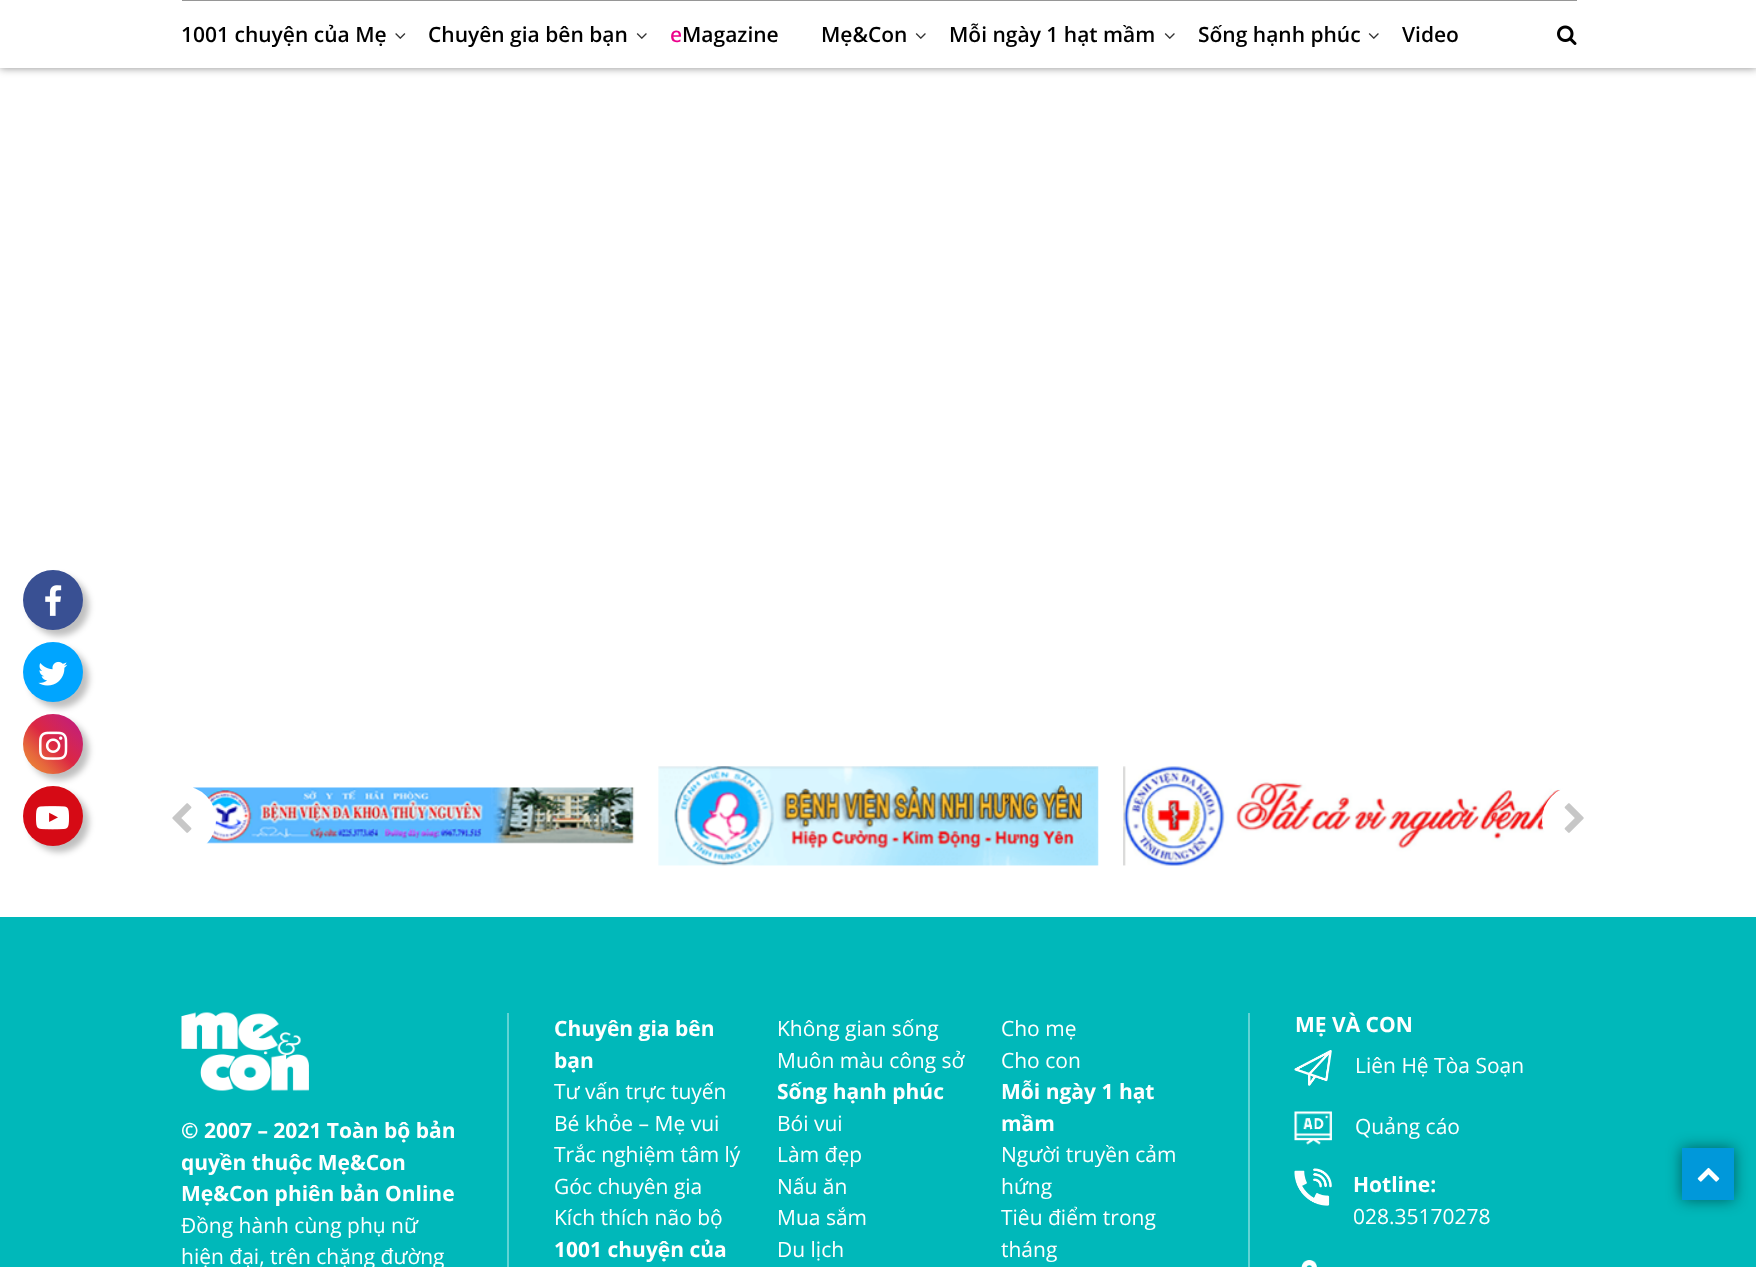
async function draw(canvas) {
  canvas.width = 1756
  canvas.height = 1267
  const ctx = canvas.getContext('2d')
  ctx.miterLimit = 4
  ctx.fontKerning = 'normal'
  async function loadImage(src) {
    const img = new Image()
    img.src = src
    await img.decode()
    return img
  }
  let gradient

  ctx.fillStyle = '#fff'
  ctx.fillRect(0, 0, 1756, 1267)
  ctx.fillStyle = '#00000040'
  ctx.filter = 'blur(3px)'
  ctx.beginPath()
  ctx.roundRect(29, 576, 60, 60, 30)
  ctx.fill()
  ctx.filter = 'none'
  ctx.fillStyle = '#395093'
  ctx.beginPath()
  ctx.arc(53, 600, 30, 0, 2 * Math.PI)
  ctx.fill()
  ctx.drawImage(await loadImage('image0.png'), 45, 585, 17, 31)
  ctx.fillStyle = '#00000040'
  ctx.filter = 'blur(3px)'
  ctx.beginPath()
  ctx.roundRect(29, 648, 60, 60, 30)
  ctx.fill()
  ctx.filter = 'none'
  ctx.fillStyle = '#00a5ff'
  ctx.beginPath()
  ctx.arc(53, 672, 30, 0, 2 * Math.PI)
  ctx.fill()
  ctx.drawImage(await loadImage('image1.png'), 38, 661, 30, 25)
  ctx.fillStyle = '#00000040'
  ctx.filter = 'blur(3px)'
  ctx.beginPath()
  ctx.roundRect(29, 720, 60, 60, 30)
  ctx.fill()
  ctx.filter = 'none'
  gradient = ctx.createLinearGradient(23, 774, 83, 714)
  gradient.addColorStop(0, '#f09433')
  gradient.addColorStop(0.25, '#e6683c')
  gradient.addColorStop(0.5, '#dc2743')
  gradient.addColorStop(0.75, '#cc2366')
  gradient.addColorStop(1, '#bc1888')
  ctx.fillStyle = gradient
  ctx.beginPath()
  ctx.arc(53, 744, 30, 0, 2 * Math.PI)
  ctx.fill()
  ctx.drawImage(await loadImage('image2.png'), 39, 731, 29, 29)
  ctx.fillStyle = '#00000040'
  ctx.filter = 'blur(3px)'
  ctx.beginPath()
  ctx.roundRect(29, 792, 60, 60, 30)
  ctx.fill()
  ctx.filter = 'none'
  ctx.fillStyle = '#d60a15'
  ctx.beginPath()
  ctx.arc(53, 816, 30, 0, 2 * Math.PI)
  ctx.fill()
  ctx.drawImage(await loadImage('image3.png'), 36, 806, 33, 24)
  ctx.fillStyle = '#00000075'
  ctx.filter = 'blur(4px)'
  ctx.beginPath()
  ctx.rect(0, -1, 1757, 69)
  ctx.fill()
  ctx.filter = 'none'
  ctx.fillStyle = '#fff'
  ctx.fillRect(0, 0, 1756, 68)
  ctx.fillStyle = '#969696'
  ctx.fillRect(182, 0, 1395, 1)
  ctx.font = '600 21px Open Sans'
  ctx.fillStyle = '#000'
  ctx.fillText('1001 chuyện của Mẹ', 181, 42)
  ctx.drawImage(await loadImage('image4.png'), 395, 33, 11, 6)
  ctx.fillText('Chuyên gia bên bạn', 428, 42)
  ctx.drawImage(await loadImage('image5.png'), 636, 33, 11, 6)
  ctx.font = '500 21px Noto Sans'
  ctx.fillStyle = '#ec008c'
  ctx.fillText('e', 670, 42)
  ctx.font = '600 21px Open Sans'
  ctx.fillStyle = '#000'
  ctx.fillText('Magazine', 682, 42)
  ctx.fillText('Mẹ&Con', 821, 42)
  ctx.drawImage(await loadImage('image5.png'), 915, 33, 11, 6)
  ctx.fillText('Mỗi ngày 1 hạt mầm', 949, 42)
  ctx.drawImage(await loadImage('image5.png'), 1164, 33, 11, 6)
  ctx.fillText('Sống hạnh phúc', 1198, 42)
  ctx.drawImage(await loadImage('image5.png'), 1368, 33, 11, 6)
  ctx.fillText('Video', 1402, 42)
  ctx.drawImage(await loadImage('image6.png'), 1557, 25, 20, 20)
  ctx.drawImage(await loadImage('image7.png'), 193, 787, 442, 57)
  ctx.drawImage(await loadImage('image8.png'), 658, 766, 441, 100)
  ctx.drawImage(await loadImage('image9.png'), 1123, 766, 440, 100)
  ctx.fillStyle = '#fff'
  ctx.beginPath()
  ctx.roundRect(149, 786, 67, 68, 33.5)
  ctx.fill()
  ctx.drawImage(await loadImage('image10.png'), 172, 803, 20, 30)
  ctx.beginPath()
  ctx.arc(1576, 820, 34, 0, 2 * Math.PI)
  ctx.fill()
  ctx.drawImage(await loadImage('image11.png'), 1564, 803, 20, 30)
  ctx.fillStyle = '#00b8ba'
  ctx.fillRect(0, 917, 1756, 350)
  ctx.drawImage(await loadImage('image12.png'), 181, 1012, 128, 79)
  ctx.font = 'bold 21px Open Sans'
  ctx.fillStyle = '#fff'
  ctx.fillText('© 2007 – 2021 Toàn bộ bản', 181, 1138)
  ctx.fillText('quyền thuộc Mẹ&Con', 181, 1170)
  ctx.fillText('Mẹ&Con phiên bản Online', 181, 1201)
  ctx.font = '21px Open Sans'
  ctx.fillText('Đồng hành cùng phụ nữ', 181, 1233)
  ctx.fillText('hiện đại, trên chặng đường', 181, 1264)
  ctx.fillStyle = '#61d3d4'
  ctx.fillRect(1248, 1013, 2, 254)
  ctx.fillRect(507, 1013, 2, 254)
  ctx.fillStyle = '#fff'
  ctx.fillText('Không gian sống', 777, 1036)
  ctx.fillText('Muôn màu công sở', 777, 1068)
  ctx.font = 'bold 21px Open Sans'
  ctx.fillText('1001 chuyện của', 554, 1257)
  ctx.fillText('Chuyên gia bên', 554, 1036)
  ctx.fillText('bạn', 554, 1068)
  ctx.font = '21px Open Sans'
  ctx.fillText('Tư vấn trực tuyến', 554, 1099)
  ctx.fillText('Bé khỏe – Mẹ vui', 554, 1131)
  ctx.fillText('Trắc nghiệm tâm lý', 554, 1162)
  ctx.fillText('Góc chuyên gia', 554, 1194)
  ctx.fillText('Kích thích não bộ', 554, 1225)
  ctx.fillText('Cho mẹ', 1001, 1036)
  ctx.fillText('Cho con', 1001, 1068)
  ctx.font = 'bold 21px Open Sans'
  ctx.fillText('Sống hạnh phúc', 777, 1099)
  ctx.font = '21px Open Sans'
  ctx.fillText('Bói vui', 777, 1131)
  ctx.fillText('Làm đẹp', 777, 1162)
  ctx.fillText('Nấu ăn', 777, 1194)
  ctx.fillText('Mua sắm', 777, 1225)
  ctx.fillText('Du lịch', 777, 1257)
  ctx.font = 'bold 21px Open Sans'
  ctx.fillText('Mỗi ngày 1 hạt', 1001, 1099)
  ctx.fillText('mầm', 1001, 1131)
  ctx.font = '21px Open Sans'
  ctx.fillText('Người truyền cảm', 1001, 1162)
  ctx.fillText('hứng', 1001, 1194)
  ctx.fillText('Tiêu điểm trong', 1001, 1225)
  ctx.fillText('tháng', 1001, 1257)
  ctx.font = 'bold 21px Open Sans'
  ctx.fillText('MẸ VÀ CON', 1295, 1032)
  ctx.drawImage(await loadImage('image13.png'), 1294, 1050, 38, 36)
  ctx.font = '21px Open Sans'
  ctx.fillText('Liên Hệ Tòa Soạn', 1355, 1073)
  ctx.drawImage(await loadImage('image14.png'), 1294, 1111, 38, 34)
  ctx.fillText('Quảng cáo', 1355, 1134)
  ctx.drawImage(await loadImage('image15.png'), 1294, 1168, 38, 38)
  ctx.font = 'bold 21px Open Sans'
  ctx.fillText('Hotline:', 1353, 1192)
  ctx.font = '21px Open Sans'
  ctx.fillText('028.35170278', 1353, 1224)
  ctx.drawImage(await loadImage('image16.png'), 1301, 1260, 16, 7)
  ctx.fillStyle = '#0000007d'
  ctx.filter = 'blur(7.5px)'
  ctx.beginPath()
  ctx.rect(1682, 1148, 52, 52)
  ctx.fill()
  ctx.filter = 'none'
  ctx.fillStyle = '#0098da'
  ctx.fillRect(1682, 1148, 52, 52)
  ctx.drawImage(await loadImage('image17.png'), 1697, 1167, 23, 15)
}

draw(document.querySelector('canvas'))
